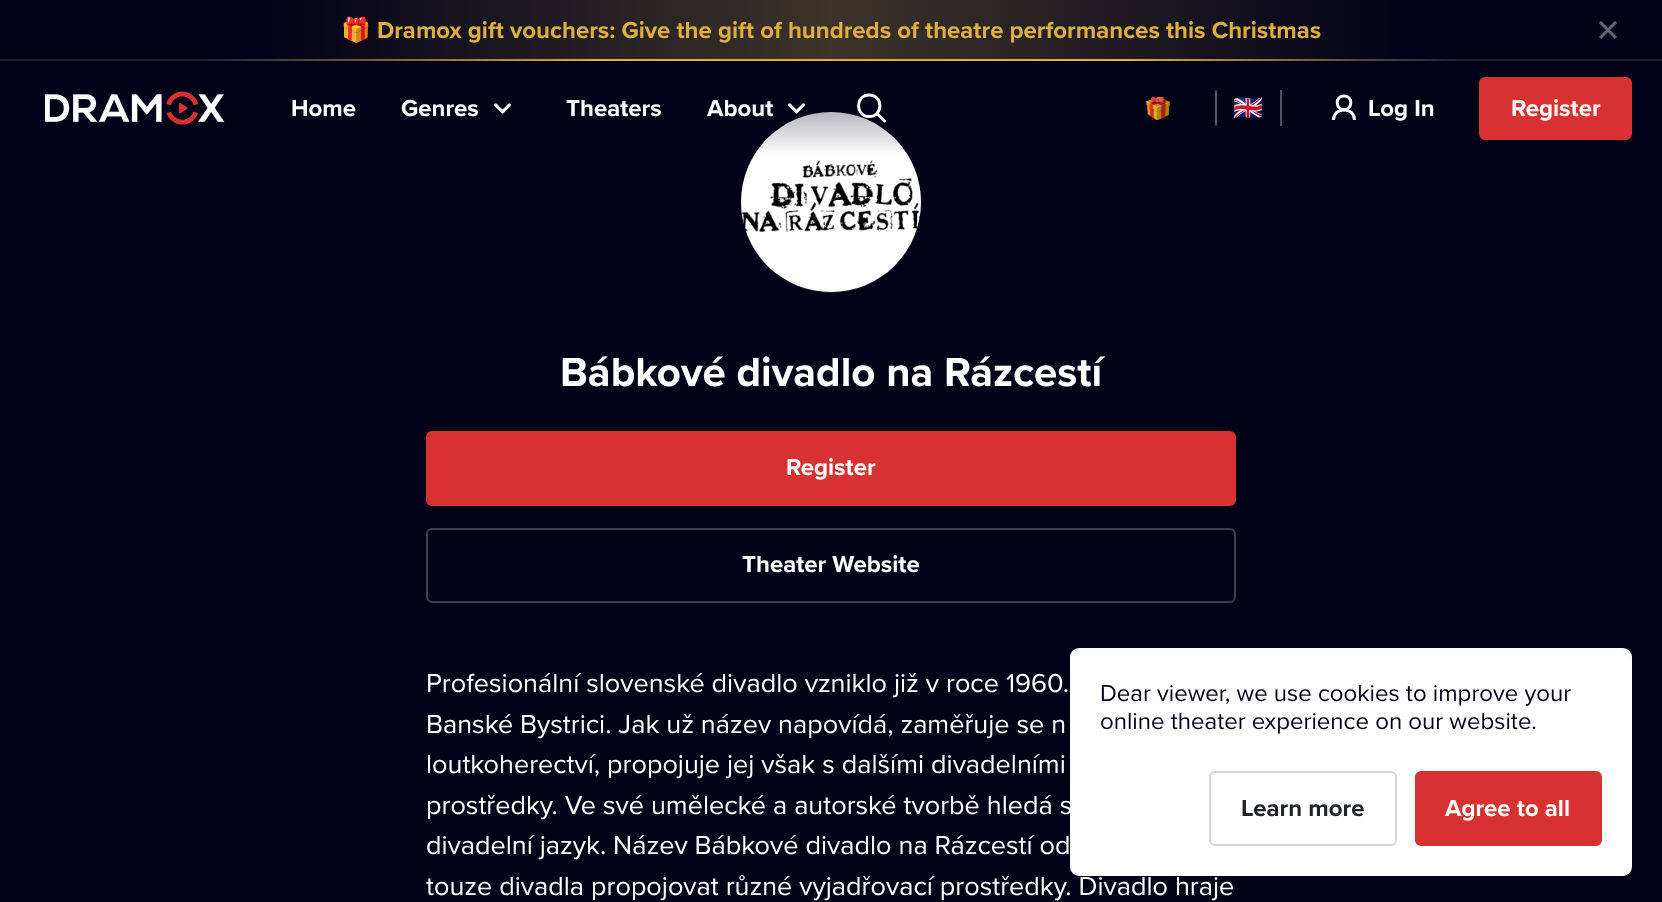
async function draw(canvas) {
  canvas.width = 1662
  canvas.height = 902
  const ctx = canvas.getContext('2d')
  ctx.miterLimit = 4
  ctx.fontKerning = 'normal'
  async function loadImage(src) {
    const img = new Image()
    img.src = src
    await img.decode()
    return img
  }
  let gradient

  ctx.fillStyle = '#010118'
  ctx.fillRect(0, 0, 1662, 902)
  ctx.fillStyle = '#1d1d2b'
  ctx.beginPath()
  ctx.arc(831, 203, 90, 0, 2 * Math.PI)
  ctx.fill()
  ctx.drawImage(await loadImage('image3.png'), 741, 112, 180, 180)
  gradient = ctx.createLinearGradient(831, 0, 831, 156)
  gradient.addColorStop(0, '#010118')
  gradient.addColorStop(1, '#01011800')
  ctx.fillStyle = gradient
  ctx.fillRect(756, 112, 150, 41)
  gradient = ctx.createLinearGradient(1662, 30, 0, 30)
  gradient.addColorStop(0.15, '#010117')
  gradient.addColorStop(0.5, '#3c332a')
  gradient.addColorStop(0.85, '#010117')
  ctx.fillStyle = gradient
  ctx.fillRect(274, 0, 1114, 59)
  ctx.font = 'bold 24px Noto Color Emoji'
  ctx.fillStyle = '#deaf3e'
  ctx.fillText('🎁', 341, 38)
  ctx.font = 'bold 24px Proxima Nova'
  ctx.fillText('Dramox gift vouchers: Give the gift of hundreds of theatre performances this Christmas', 377, 38)
  ctx.beginPath()
  ctx.moveTo(1616, 22)
  ctx.lineTo(1600, 38)
  ctx.moveTo(1600, 22)
  ctx.lineTo(1616, 38)
  ctx.closePath()
  ctx.strokeStyle = '#676774'
  ctx.lineWidth = 3
  ctx.stroke()
  gradient = ctx.createLinearGradient(1662, 59, 0, 59)
  gradient.addColorStop(0.12, '#1f1f33')
  gradient.addColorStop(0.32, '#deaf3e')
  gradient.addColorStop(0.64, '#deaf3e')
  gradient.addColorStop(0.88, '#1f1f33')
  ctx.fillStyle = gradient
  ctx.fillRect(0, 59, 1662, 2)
  ctx.drawImage(await loadImage('image0.png'), 45, 91, 180, 34)
  ctx.fillStyle = '#fff'
  ctx.fillText('Home', 291, 116)
  ctx.fillText('Genres', 401, 116)
  ctx.drawImage(await loadImage('image1.png'), 494, 103, 17, 11)
  ctx.fillText('Theaters', 566, 116)
  ctx.fillText('About', 707, 116)
  ctx.drawImage(await loadImage('image1.png'), 788, 103, 17, 11)
  ctx.beginPath()
  ctx.moveTo(869, 95)
  ctx.bezierCurveTo(855, 95, 855, 116.5, 869, 116.5)
  ctx.bezierCurveTo(883.5, 116.5, 883.5, 95, 869, 95)
  ctx.closePath()
  ctx.strokeStyle = '#fff'
  ctx.stroke()
  ctx.beginPath()
  ctx.moveTo(884.5, 121)
  ctx.lineTo(877, 113.5)
  ctx.lineCap = 'round'
  ctx.stroke()
  ctx.drawImage(await loadImage('image2.png'), 1145, 96, 25, 24)
  ctx.fillStyle = '#525262'
  ctx.fillRect(1215, 90, 2, 36)
  ctx.font = 'bold 24px Noto Color Emoji'
  ctx.fillStyle = '#fff'
  ctx.fillText('🇬🇧', 1233, 116)
  ctx.fillStyle = '#525262'
  ctx.fillRect(1280, 90, 2, 36)
  ctx.beginPath()
  ctx.moveTo(1333.5, 120)
  ctx.bezierCurveTo(1333.5, 106.5, 1354.5, 106.5, 1354.5, 120)
  ctx.moveTo(1344, 96)
  ctx.bezierCurveTo(1335, 96, 1335, 109.5, 1344, 109.5)
  ctx.bezierCurveTo(1353, 109.5, 1353, 96, 1344, 96)
  ctx.closePath()
  ctx.lineCap = 'butt'
  ctx.stroke()
  ctx.font = 'bold 24px Proxima Nova'
  ctx.fillStyle = '#fff'
  ctx.fillText('Log In', 1368, 116)
  ctx.fillStyle = '#d73231'
  ctx.beginPath()
  ctx.roundRect(1480, 78, 151, 61, 5)
  ctx.fill()
  ctx.strokeStyle = '#d73231'
  ctx.lineWidth = 2
  ctx.stroke()
  ctx.fillStyle = '#fff'
  ctx.fillText('Register', 1511, 116)
  ctx.font = 'bold 42px Proxima Nova'
  ctx.fillText('Bábkové divadlo na Rázcestí', 560, 386)
  ctx.fillStyle = '#d73231'
  ctx.beginPath()
  ctx.roundRect(427, 432, 808, 73, 5)
  ctx.fill()
  ctx.stroke()
  ctx.font = 'bold 24px Proxima Nova'
  ctx.fillStyle = '#fff'
  ctx.fillText('Register', 786, 475)
  ctx.beginPath()
  ctx.roundRect(427, 529, 808, 73, 5)
  ctx.strokeStyle = '#3e3e4f'
  ctx.stroke()
  ctx.fillText('Theater Website', 742, 572)
  ctx.font = '27px Proxima Nova'
  ctx.fillText('Profesionální slovenské divadlo vzniklo již v roce 1960.', 426, 692)
  ctx.fillText('Banské Bystrici. Jak už název napovídá, zaměřuje se n', 426, 733)
  ctx.fillText('loutkoherectví, propojuje jej však s dalšími divadelními', 426, 773)
  ctx.fillText('prostředky. Ve své umělecké a autorské tvorbě hledá s', 426, 814)
  ctx.fillText('divadelní jazyk. Název Bábkové divadlo na Rázcestí od', 426, 854)
  ctx.fillText('touze divadla propojovat různé vyjadřovací prostředky. Divadlo hraje', 426, 895)
  ctx.beginPath()
  ctx.roundRect(1070, 648, 562, 228, 9)
  ctx.fill()
  ctx.font = '24px Proxima Nova'
  ctx.fillStyle = '#010118'
  ctx.fillText('Dear viewer, we use cookies to improve your', 1100, 701)
  ctx.fillText('online theater experience on our website.', 1100, 729)
  ctx.beginPath()
  ctx.roundRect(1210, 772, 186, 73, 5)
  ctx.strokeStyle = '#d6d6da'
  ctx.stroke()
  ctx.font = 'bold 24px Proxima Nova'
  ctx.fillStyle = '#212529'
  ctx.fillText('Learn more', 1241, 816)
  ctx.fillStyle = '#d73231'
  ctx.beginPath()
  ctx.roundRect(1416, 772, 185, 73, 5)
  ctx.fill()
  ctx.strokeStyle = '#d73231'
  ctx.stroke()
  ctx.fillStyle = '#fff'
  ctx.fillText('Agree to all', 1445, 816)
}

draw(document.querySelector('canvas'))
